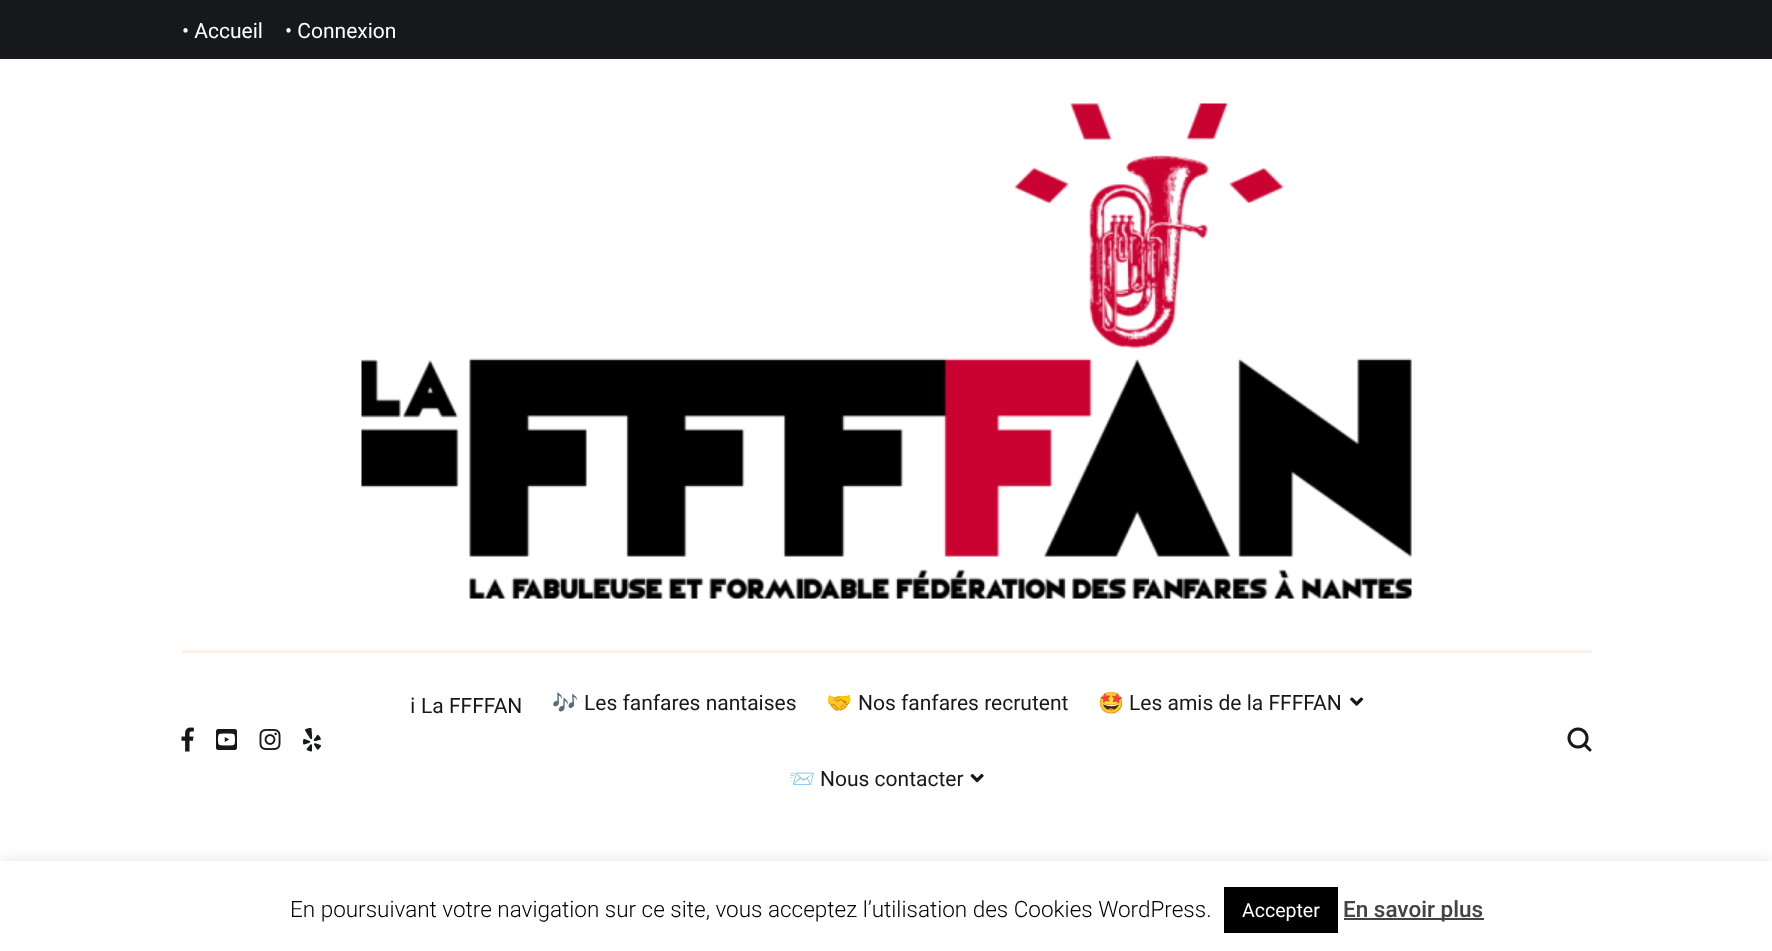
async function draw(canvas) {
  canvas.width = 1772
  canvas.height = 951
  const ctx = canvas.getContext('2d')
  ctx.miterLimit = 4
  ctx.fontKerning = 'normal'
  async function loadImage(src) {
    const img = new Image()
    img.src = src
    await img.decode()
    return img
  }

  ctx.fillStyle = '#fff'
  ctx.fillRect(0, 0, 1772, 951)
  ctx.fillStyle = '#16181a'
  ctx.fillRect(0, 0, 1772, 59)
  ctx.font = '21px Roboto'
  ctx.fillStyle = '#fff'
  ctx.fillText('• Accueil', 182, 38)
  ctx.fillText('• Connexion', 285, 38)
  ctx.drawImage(await loadImage('image0.png'), 361, 103, 1051, 496)
  ctx.fillStyle = '#fff0e6'
  ctx.fillRect(182, 650, 1410, 3)
  ctx.drawImage(await loadImage('image1.png'), 181, 727, 13, 25)
  ctx.drawImage(await loadImage('image2.png'), 216, 729, 21, 21)
  ctx.drawImage(await loadImage('image3.png'), 259, 729, 22, 21)
  ctx.drawImage(await loadImage('image4.png'), 303, 727, 18, 25)
  ctx.font = '21px Noto Sans'
  ctx.fillStyle = '#16181a'
  ctx.fillText('ℹ', 410, 713)
  ctx.font = '21px Roboto'
  ctx.fillText('La FFFFAN', 421, 713)
  ctx.font = '21px Noto Color Emoji'
  ctx.fillText('🎶', 552, 710)
  ctx.font = '21px Roboto'
  ctx.fillText('Les fanfares nantaises', 584, 710)
  ctx.font = '21px Noto Color Emoji'
  ctx.fillText('🤝', 826, 710)
  ctx.font = '21px Roboto'
  ctx.fillText('Nos fanfares recrutent', 858, 710)
  ctx.font = '21px Noto Color Emoji'
  ctx.fillText('🤩', 1098, 710)
  ctx.font = '21px Roboto'
  ctx.fillText('Les amis de la FFFFAN', 1129, 710)
  ctx.drawImage(await loadImage('image5.png'), 1350, 697, 14, 9)
  ctx.font = '21px Noto Color Emoji'
  ctx.fillText('📨', 789, 786)
  ctx.font = '21px Roboto'
  ctx.fillText('Nous contacter', 820, 786)
  ctx.drawImage(await loadImage('image6.png'), 970, 773, 14, 10)
  ctx.drawImage(await loadImage('image7.png'), 1567, 727, 25, 25)
  ctx.fillStyle = '#acabab4d'
  ctx.filter = 'blur(7.5px)'
  ctx.beginPath()
  ctx.rect(0, 860, 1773, 90)
  ctx.fill()
  ctx.filter = 'none'
  ctx.fillStyle = '#fff'
  ctx.fillRect(0, 861, 1772, 90)
  ctx.font = '300 22.5px Roboto'
  ctx.fillStyle = '#000'
  ctx.fillText('En poursuivant votre navigation sur ce site, vous acceptez l’utilisation des Cookies WordPress.', 290, 917)
  ctx.fillRect(1224, 887, 114, 46)
  ctx.font = '19.5px Roboto'
  ctx.fillStyle = '#fff'
  ctx.fillText('Accepter', 1242, 917)
  ctx.fillStyle = '#444'
  ctx.fillRect(1344, 918, 140, 2)
  ctx.font = '500 22.5px Roboto'
  ctx.fillText('En savoir plus', 1343, 917)
}

draw(document.querySelector('canvas'))
